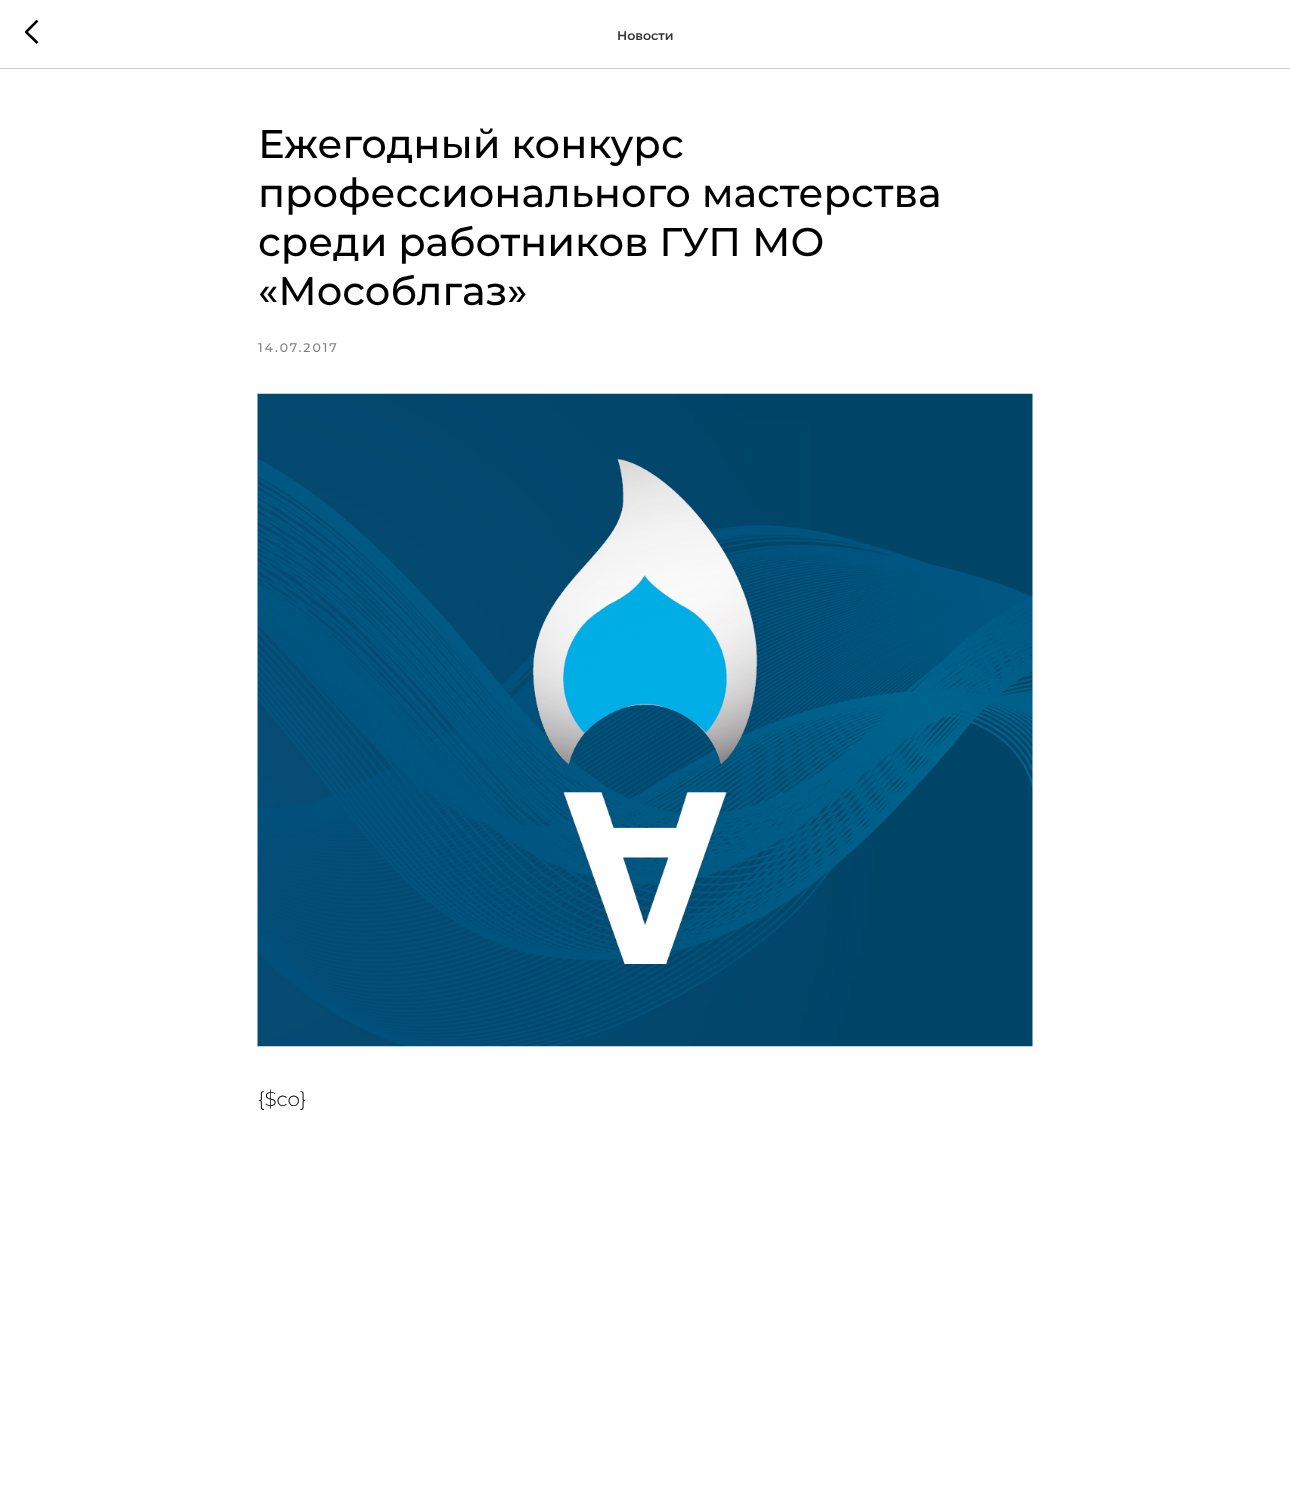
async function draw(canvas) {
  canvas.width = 1290
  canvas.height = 1502
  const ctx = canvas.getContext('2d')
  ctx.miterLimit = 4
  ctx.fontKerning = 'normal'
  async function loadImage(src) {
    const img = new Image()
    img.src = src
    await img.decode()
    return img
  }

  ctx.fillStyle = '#fff'
  ctx.fillRect(0, 0, 1290, 1502)
  ctx.fillStyle = '#ccc'
  ctx.fillRect(0, 68, 1290, 1)
  ctx.save()
  ctx.beginPath()
  ctx.rect(25, 20, 14, 25)
  ctx.clip()
  ctx.beginPath()
  ctx.moveTo(37.5, 43)
  ctx.lineTo(26, 32)
  ctx.lineTo(37.5, 20.5)
  ctx.strokeStyle = '#000'
  ctx.lineWidth = 2.5
  ctx.stroke()
  ctx.restore()
  ctx.font = '600 12.5px Montserrat'
  ctx.fillStyle = '#333'
  ctx.fillText('Новости', 617, 40)
  ctx.font = '500 40px Montserrat'
  ctx.fillStyle = '#000'
  ctx.fillText('Ежегодный конкурс', 258, 158)
  ctx.fillText('профессионального мастерства', 258, 207)
  ctx.fillText('среди работников ГУП МО', 258, 256)
  ctx.fillText('«Мособлгаз»', 258, 305)
  ctx.letterSpacing = '1.9px'
  ctx.font = '500 12.5px Montserrat'
  ctx.fillStyle = '#808080'
  ctx.fillText('14.07.2017', 258, 352)
  ctx.drawImage(await loadImage('image0.png'), 257, 393, 776, 654)
  ctx.letterSpacing = '0px'
  ctx.font = '300 20px Montserrat'
  ctx.fillStyle = '#000'
  ctx.fillText('{$co}', 258, 1106)
}

draw(document.querySelector('canvas'))
